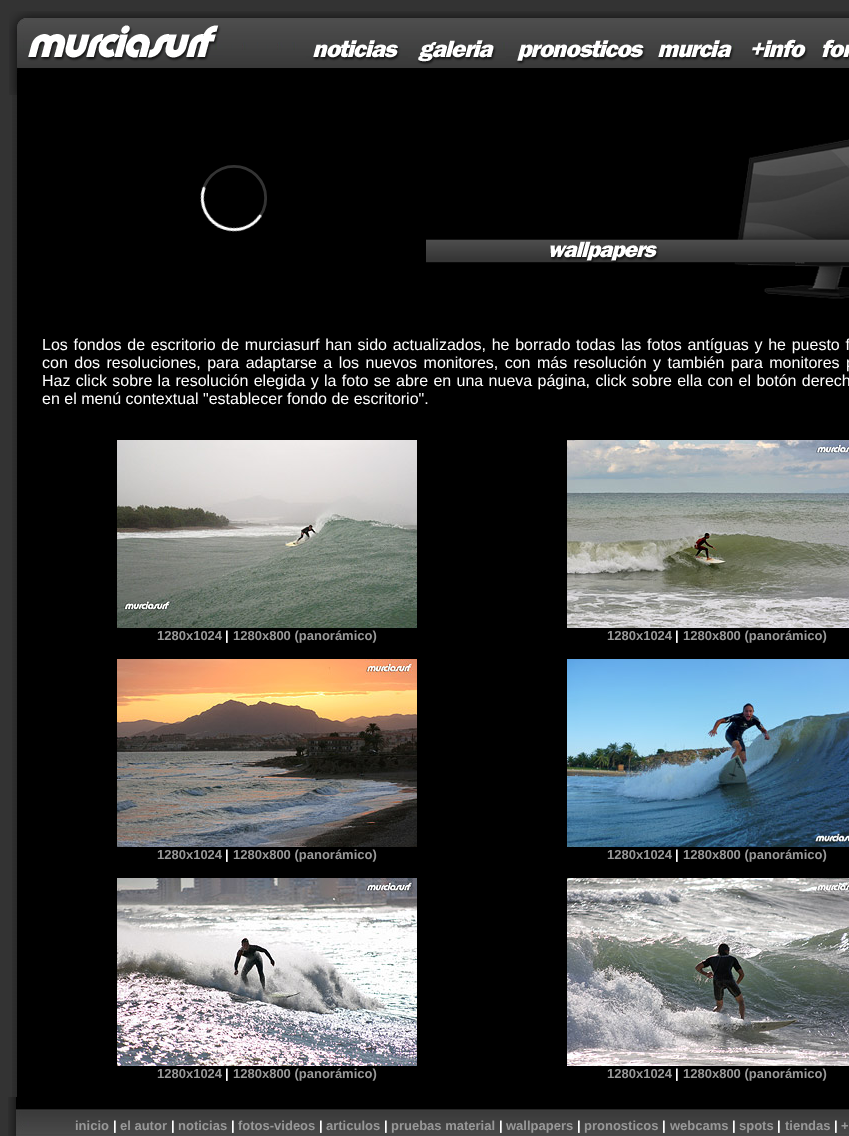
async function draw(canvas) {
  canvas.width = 849
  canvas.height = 1136
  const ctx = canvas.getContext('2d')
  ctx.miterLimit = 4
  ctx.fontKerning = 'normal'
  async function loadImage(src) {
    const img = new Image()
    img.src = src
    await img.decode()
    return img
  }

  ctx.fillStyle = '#333'
  ctx.fillRect(0, 0, 849, 1136)
  ctx.drawImage(await loadImage('image0.png'), 9, 11, 840, 19)
  ctx.drawImage(await loadImage('image1.png'), 9, 30, 214, 38)
  ctx.drawImage(await loadImage('image2.png'), 223, 30, 83, 38)
  ctx.drawImage(await loadImage('image3.png'), 306, 30, 102, 38)
  ctx.drawImage(await loadImage('image4.png'), 408, 30, 98, 38)
  ctx.drawImage(await loadImage('image5.png'), 506, 30, 145, 38)
  ctx.drawImage(await loadImage('image6.png'), 651, 30, 91, 38)
  ctx.drawImage(await loadImage('image7.png'), 742, 30, 72, 38)
  ctx.drawImage(await loadImage('image8.png'), 814, 30, 35, 38)
  ctx.drawImage(await loadImage('image9.png'), 9, 68, 840, 27)
  ctx.drawImage(await loadImage('image10.png'), 12, 95, 837, 1002)
  ctx.drawImage(await loadImage('image11.png'), 200, 165, 67, 67)
  ctx.drawImage(await loadImage('image12.png'), 426, 139, 423, 160)
  ctx.wordSpacing = '1.25px'
  ctx.font = '16px Liberation Sans'
  ctx.fillStyle = '#fff'
  ctx.fillText('Los fondos de escritorio de murciasurf han sido actualizados, he borrado todas las fotos antíguas y he puesto f', 42, 350)
  ctx.wordSpacing = '2px'
  ctx.fillText('con dos resoluciones, para adaptarse a los nuevos monitores, con más resolución y también para monitores p', 42, 368)
  ctx.wordSpacing = '0.9px'
  ctx.fillText('Haz click sobre la resolución elegida y la foto se abre en una nueva página, click sobre ella con el botón derech', 42, 386)
  ctx.wordSpacing = '0px'
  ctx.fillText('en el menú contextual "establecer fondo de escritorio".', 42, 404)
  ctx.drawImage(await loadImage('image13.png'), 117, 440, 300, 188)
  ctx.font = 'bold 13px Liberation Sans'
  ctx.fillStyle = '#999'
  ctx.fillText('1280x1024', 157, 640)
  ctx.fillStyle = '#fff'
  ctx.fillText('|', 225, 640)
  ctx.fillStyle = '#999'
  ctx.fillText('1280x800 (panorámico)', 233, 640)
  ctx.drawImage(await loadImage('image14.png'), 117, 659, 300, 188)
  ctx.fillText('1280x1024', 157, 859)
  ctx.fillStyle = '#fff'
  ctx.fillText('|', 225, 859)
  ctx.fillStyle = '#999'
  ctx.fillText('1280x800 (panorámico)', 233, 859)
  ctx.drawImage(await loadImage('image15.png'), 117, 878, 300, 188)
  ctx.fillText('1280x1024', 157, 1078)
  ctx.fillStyle = '#fff'
  ctx.fillText('|', 225, 1078)
  ctx.fillStyle = '#999'
  ctx.fillText('1280x800 (panorámico)', 233, 1078)
  ctx.drawImage(await loadImage('image16.png'), 567, 440, 282, 188)
  ctx.fillText('1280x1024', 607, 640)
  ctx.fillStyle = '#fff'
  ctx.fillText('|', 675, 640)
  ctx.fillStyle = '#999'
  ctx.fillText('1280x800 (panorámico)', 683, 640)
  ctx.drawImage(await loadImage('image17.png'), 567, 659, 282, 188)
  ctx.fillText('1280x1024', 607, 859)
  ctx.fillStyle = '#fff'
  ctx.fillText('|', 675, 859)
  ctx.fillStyle = '#999'
  ctx.fillText('1280x800 (panorámico)', 683, 859)
  ctx.drawImage(await loadImage('image18.png'), 567, 878, 282, 188)
  ctx.fillText('1280x1024', 607, 1078)
  ctx.fillStyle = '#fff'
  ctx.fillText('|', 675, 1078)
  ctx.fillStyle = '#999'
  ctx.fillText('1280x800 (panorámico)', 683, 1078)
  ctx.drawImage(await loadImage('image19.png'), 8, 1097, 21, 39)
  ctx.drawImage(await loadImage('image20.png'), 29, 1097, 820, 39)
  ctx.fillText('inicio', 75, 1130)
  ctx.fillStyle = '#fff'
  ctx.fillText('|', 113, 1130)
  ctx.fillStyle = '#999'
  ctx.fillText('el autor', 120, 1130)
  ctx.fillStyle = '#fff'
  ctx.fillText('|', 171, 1130)
  ctx.fillStyle = '#999'
  ctx.fillText('noticias', 178, 1130)
  ctx.fillStyle = '#fff'
  ctx.fillText('|', 231, 1130)
  ctx.fillStyle = '#999'
  ctx.fillText('fotos-videos', 238, 1130)
  ctx.fillStyle = '#fff'
  ctx.fillText('|', 319, 1130)
  ctx.fillStyle = '#999'
  ctx.fillText('articulos', 326, 1130)
  ctx.fillStyle = '#fff'
  ctx.fillText('|', 384, 1130)
  ctx.fillStyle = '#999'
  ctx.fillText('pruebas material', 391, 1130)
  ctx.fillStyle = '#fff'
  ctx.fillText('|', 499, 1130)
  ctx.fillStyle = '#999'
  ctx.fillText('wallpapers', 506, 1130)
  ctx.fillStyle = '#fff'
  ctx.fillText('|', 577, 1130)
  ctx.fillStyle = '#999'
  ctx.fillText('pronosticos', 584, 1130)
  ctx.fillStyle = '#fff'
  ctx.fillText('|', 662, 1130)
  ctx.fillStyle = '#999'
  ctx.fillText('webcams', 670, 1130)
  ctx.fillStyle = '#fff'
  ctx.fillText('|', 732, 1130)
  ctx.fillStyle = '#999'
  ctx.fillText('spots', 739, 1130)
  ctx.fillStyle = '#fff'
  ctx.fillText('|', 777, 1130)
  ctx.fillStyle = '#999'
  ctx.fillText('tiendas', 785, 1130)
  ctx.fillStyle = '#fff'
  ctx.fillText('|', 834, 1130)
  ctx.fillStyle = '#999'
  ctx.fillText('+', 841, 1130)
}

draw(document.querySelector('canvas'))
